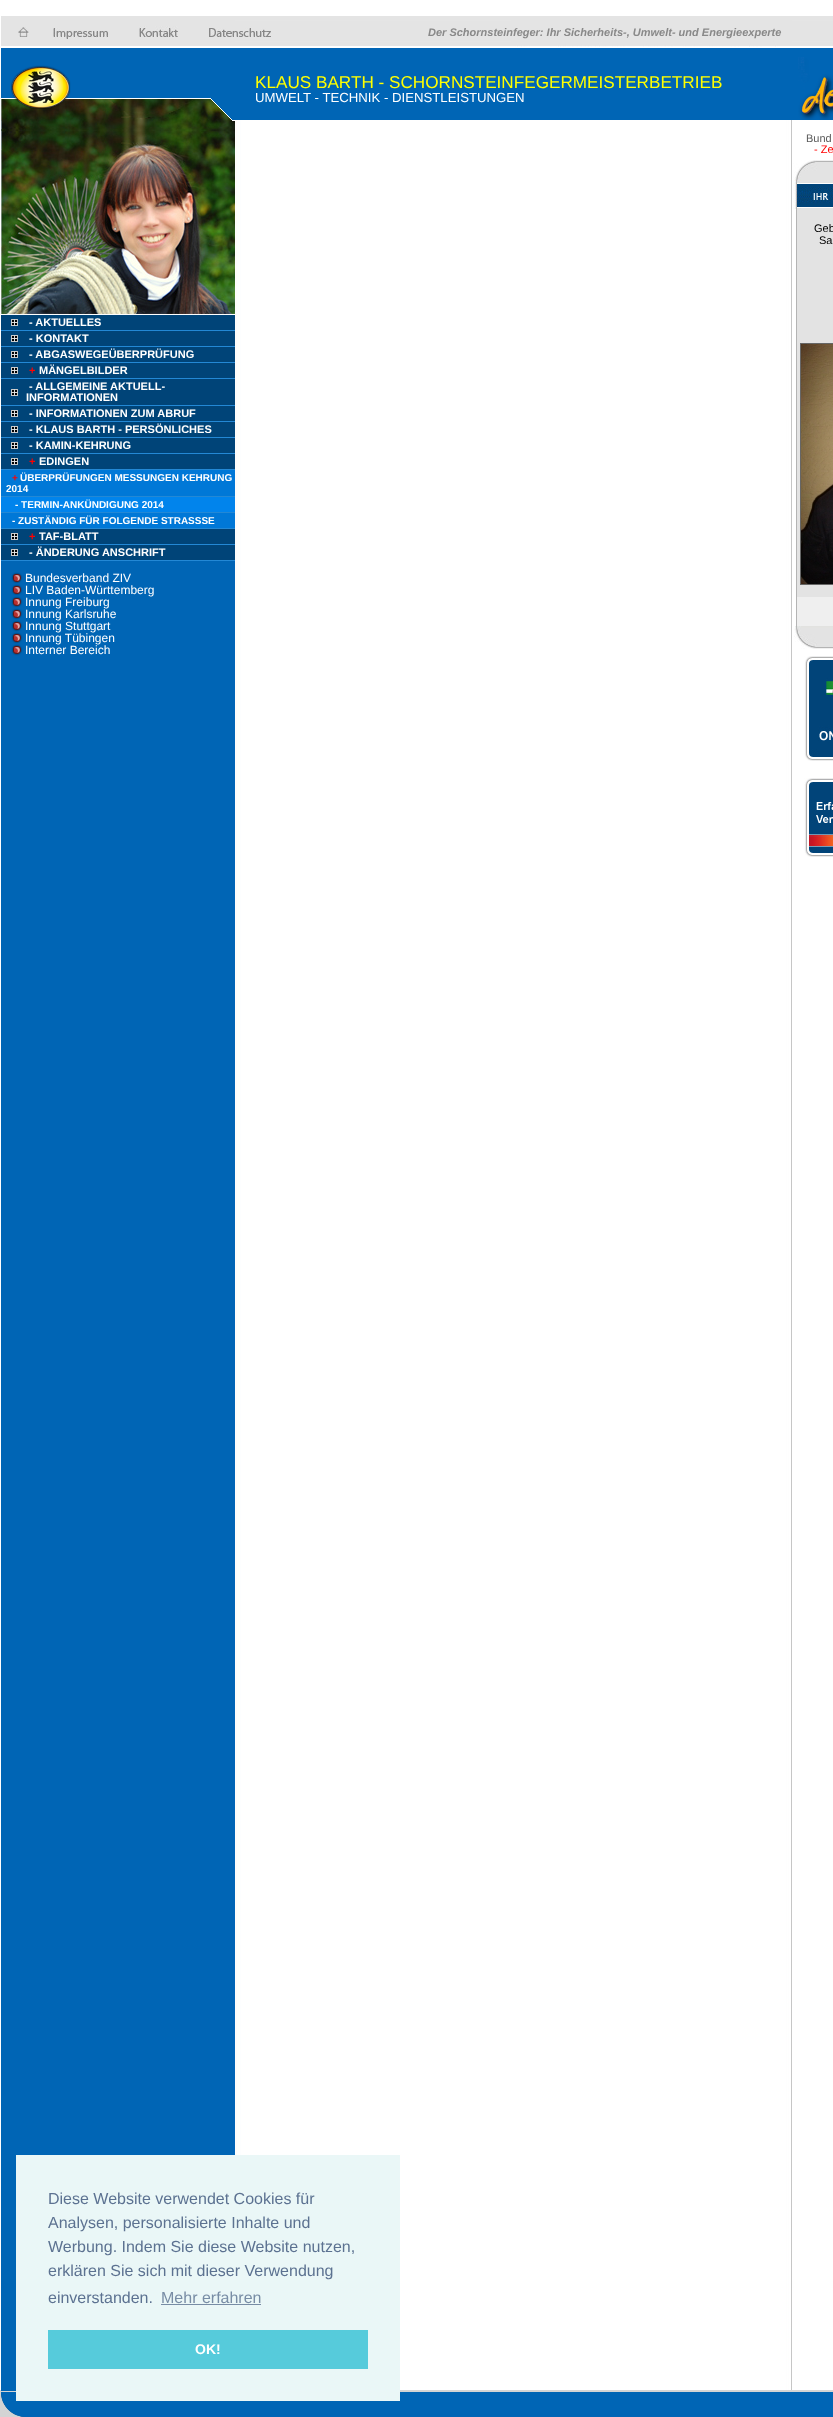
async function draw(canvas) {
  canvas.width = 833
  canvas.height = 2417
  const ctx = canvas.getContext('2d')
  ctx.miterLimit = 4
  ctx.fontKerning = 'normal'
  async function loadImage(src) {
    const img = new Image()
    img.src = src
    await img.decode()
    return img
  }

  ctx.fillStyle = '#fff'
  ctx.fillRect(0, 0, 833, 2417)
  ctx.drawImage(await loadImage('image0.png'), 1, 0, 832, 2390)
  ctx.drawImage(await loadImage('image14.png'), 1, 99, 234, 216)
  ctx.drawImage(await loadImage('image15.png'), 1, 0, 234, 247)
  ctx.drawImage(await loadImage('image1.png'), 18, 27, 11, 10)
  ctx.drawImage(await loadImage('image2.png'), 53, 28, 55, 11)
  ctx.drawImage(await loadImage('image3.png'), 139, 26, 39, 11)
  ctx.drawImage(await loadImage('image6.png'), 235, 0, 576, 120)
  ctx.drawImage(await loadImage('image4.png'), 209, 28, 62, 9)
  ctx.font = 'italic bold 11px Liberation Sans'
  ctx.fillStyle = '#898989'
  ctx.fillText('Der Schornsteinfeger: Ihr Sicherheits-, Umwelt- und Energieexperte', 428, 36)
  ctx.drawImage(await loadImage('image5.png'), 11, 65, 60, 44)
  ctx.font = '17.15px Liberation Sans'
  ctx.fillStyle = '#ff0'
  ctx.fillText('KLAUS BARTH - SCHORNSTEINFEGERMEISTERBETRIEB', 255, 88)
  ctx.font = '13.2px Liberation Sans'
  ctx.fillStyle = '#fff'
  ctx.fillText('UMWELT - TECHNIK - DIENSTLEISTUNGEN', 255, 102)
  ctx.drawImage(await loadImage('image7.png'), 811, 16, 22, 104)
  ctx.drawImage(await loadImage('image8.png'), 798, 57, 35, 63)
  ctx.font = '11px Liberation Sans'
  ctx.fillStyle = '#5c5c5c'
  ctx.fillText('Bund', 806, 142)
  ctx.fillStyle = '#f00'
  ctx.fillText('- Ze', 814, 153)
  ctx.drawImage(await loadImage('image9.png'), 793, 160, 40, 49)
  ctx.fillStyle = '#e3e3e3'
  ctx.fillRect(797, 209, 36, 388)
  ctx.fillStyle = '#b4b4b4'
  ctx.fillRect(796, 209, 1, 417)
  ctx.fillStyle = '#000'
  ctx.fillText('Geb', 814, 232)
  ctx.fillText('Sa', 819, 244)
  ctx.strokeStyle = '#666'
  ctx.strokeRect(800.5, 343.5, 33, 241)
  ctx.drawImage(await loadImage('image10.png'), 801, 344, 32, 240)
  ctx.fillStyle = '#efefef'
  ctx.fillRect(797, 597, 36, 29)
  ctx.drawImage(await loadImage('image11.png'), 794, 626, 39, 23)
  ctx.drawImage(await loadImage('image12.png'), 804, 656, 29, 105)
  ctx.drawImage(await loadImage('image13.png'), 804, 778, 29, 79)
  ctx.fillStyle = '#004478'
  ctx.fillRect(1, 315, 234, 15)
  ctx.drawImage(await loadImage('image16.png'), 11, 319, 7, 7)
  ctx.fillStyle = '#2388d5'
  ctx.fillRect(1, 330, 234, 1)
  ctx.font = 'bold 11px Liberation Sans'
  ctx.fillStyle = '#fff'
  ctx.fillText('- AKTUELLES', 29, 326)
  ctx.fillStyle = '#004478'
  ctx.fillRect(1, 331, 234, 15)
  ctx.drawImage(await loadImage('image16.png'), 11, 335, 7, 7)
  ctx.fillStyle = '#2388d5'
  ctx.fillRect(1, 346, 234, 1)
  ctx.fillStyle = '#fff'
  ctx.fillText('- KONTAKT', 29, 342)
  ctx.fillStyle = '#004478'
  ctx.fillRect(1, 347, 234, 15)
  ctx.drawImage(await loadImage('image16.png'), 11, 351, 7, 7)
  ctx.fillStyle = '#2388d5'
  ctx.fillRect(1, 362, 234, 1)
  ctx.fillStyle = '#fff'
  ctx.fillText('- ABGASWEGEÜBERPRÜFUNG', 29, 358)
  ctx.fillStyle = '#004478'
  ctx.fillRect(1, 363, 234, 15)
  ctx.drawImage(await loadImage('image16.png'), 11, 367, 7, 7)
  ctx.fillStyle = '#2388d5'
  ctx.fillRect(1, 378, 234, 1)
  ctx.fillStyle = '#f00'
  ctx.fillText('+', 29, 374)
  ctx.fillStyle = '#fff'
  ctx.fillText('MÄNGELBILDER', 39, 374)
  ctx.fillStyle = '#004478'
  ctx.fillRect(1, 379, 234, 26)
  ctx.drawImage(await loadImage('image16.png'), 11, 389, 7, 7)
  ctx.fillStyle = '#2388d5'
  ctx.fillRect(1, 405, 234, 1)
  ctx.fillStyle = '#fff'
  ctx.fillText('- ALLGEMEINE AKTUELL-', 29, 390)
  ctx.fillText('INFORMATIONEN', 26, 401)
  ctx.fillStyle = '#004478'
  ctx.fillRect(1, 406, 234, 15)
  ctx.drawImage(await loadImage('image16.png'), 11, 410, 7, 7)
  ctx.fillStyle = '#2388d5'
  ctx.fillRect(1, 421, 234, 1)
  ctx.fillStyle = '#fff'
  ctx.fillText('- INFORMATIONEN ZUM ABRUF', 29, 417)
  ctx.fillStyle = '#004478'
  ctx.fillRect(1, 422, 234, 15)
  ctx.drawImage(await loadImage('image16.png'), 11, 426, 7, 7)
  ctx.fillStyle = '#2388d5'
  ctx.fillRect(1, 437, 234, 1)
  ctx.fillStyle = '#fff'
  ctx.fillText('- KLAUS BARTH - PERSÖNLICHES', 29, 433)
  ctx.fillStyle = '#004478'
  ctx.fillRect(1, 438, 234, 15)
  ctx.drawImage(await loadImage('image16.png'), 11, 442, 7, 7)
  ctx.fillStyle = '#2388d5'
  ctx.fillRect(1, 453, 234, 1)
  ctx.fillStyle = '#fff'
  ctx.fillText('- KAMIN-KEHRUNG', 29, 449)
  ctx.fillStyle = '#004478'
  ctx.fillRect(1, 454, 234, 15)
  ctx.drawImage(await loadImage('image16.png'), 11, 458, 7, 7)
  ctx.fillStyle = '#2388d5'
  ctx.fillRect(1, 469, 234, 1)
  ctx.fillStyle = '#f00'
  ctx.fillText('+', 29, 465)
  ctx.fillStyle = '#fff'
  ctx.fillText('EDINGEN', 39, 465)
  ctx.fillStyle = '#0078d7'
  ctx.fillRect(1, 470, 234, 26)
  ctx.fillStyle = '#2388d5'
  ctx.fillRect(1, 496, 234, 1)
  ctx.font = 'bold 10px Liberation Sans'
  ctx.fillStyle = '#f00'
  ctx.fillText('+', 12, 481)
  ctx.fillStyle = '#fff'
  ctx.fillText('ÜBERPRÜFUNGEN MESSUNGEN KEHRUNG', 20, 481)
  ctx.fillText('2014', 6, 492)
  ctx.fillStyle = '#0184ec'
  ctx.fillRect(1, 497, 234, 15)
  ctx.fillStyle = '#2388d5'
  ctx.fillRect(1, 512, 234, 1)
  ctx.fillStyle = '#fff'
  ctx.fillText('- TERMIN-ANKÜNDIGUNG 2014', 15, 508)
  ctx.fillStyle = '#0078d7'
  ctx.fillRect(1, 513, 234, 15)
  ctx.fillStyle = '#2388d5'
  ctx.fillRect(1, 528, 234, 1)
  ctx.fillStyle = '#fff'
  ctx.fillText('- ZUSTÄNDIG FÜR FOLGENDE STRASSSE', 12, 524)
  ctx.fillStyle = '#004478'
  ctx.fillRect(1, 529, 234, 15)
  ctx.drawImage(await loadImage('image16.png'), 11, 533, 7, 7)
  ctx.fillStyle = '#2388d5'
  ctx.fillRect(1, 544, 234, 1)
  ctx.font = 'bold 11px Liberation Sans'
  ctx.fillStyle = '#f00'
  ctx.fillText('+', 29, 540)
  ctx.fillStyle = '#fff'
  ctx.fillText('TAF-BLATT', 39, 540)
  ctx.fillStyle = '#004478'
  ctx.fillRect(1, 545, 234, 15)
  ctx.drawImage(await loadImage('image16.png'), 11, 549, 7, 7)
  ctx.fillStyle = '#2388d5'
  ctx.fillRect(1, 560, 234, 1)
  ctx.fillStyle = '#fff'
  ctx.fillText('- ÄNDERUNG ANSCHRIFT', 29, 556)
  ctx.drawImage(await loadImage('image17.png'), 11, 572, 12, 12)
  ctx.font = '12px Liberation Sans'
  ctx.fillText('Bundesverband ZIV', 25, 582)
  ctx.drawImage(await loadImage('image17.png'), 11, 584, 12, 12)
  ctx.fillText('LIV Baden-Württemberg', 25, 594)
  ctx.drawImage(await loadImage('image17.png'), 11, 596, 12, 12)
  ctx.fillText('Innung Freiburg', 25, 606)
  ctx.drawImage(await loadImage('image17.png'), 11, 608, 12, 12)
  ctx.fillText('Innung Karlsruhe', 25, 618)
  ctx.drawImage(await loadImage('image17.png'), 11, 620, 12, 12)
  ctx.fillText('Innung Stuttgart', 25, 630)
  ctx.drawImage(await loadImage('image17.png'), 11, 632, 12, 12)
  ctx.fillText('Innung Tübingen', 25, 642)
  ctx.drawImage(await loadImage('image17.png'), 11, 644, 12, 12)
  ctx.fillText('Interner Bereich', 25, 654)
  ctx.fillStyle = '#d4d4d4'
  ctx.fillRect(0, 2390, 833, 27)
  ctx.drawImage(await loadImage('image18.png'), 1, 2390, 832, 27)
  ctx.fillStyle = '#eaf7f7'
  ctx.fillRect(16, 2155, 384, 246)
  ctx.font = '16px Liberation Sans'
  ctx.fillStyle = '#5c7291'
  ctx.fillText('Diese Website verwendet Cookies für', 48, 2204)
  ctx.fillText('Analysen, personalisierte Inhalte und', 48, 2228)
  ctx.fillText('Werbung. Indem Sie diese Website nutzen,', 48, 2252)
  ctx.fillText('erklären Sie sich mit dieser Verwendung', 48, 2276)
  ctx.fillText('einverstanden.', 48, 2303)
  ctx.fillStyle = '#788da5'
  ctx.fillText('Mehr erfahren', 161, 2303)
  ctx.fillRect(161, 2304, 100, 1)
  ctx.fillStyle = '#56cbdb'
  ctx.fillRect(48, 2330, 320, 39)
  ctx.font = 'bold 14px Liberation Sans'
  ctx.fillStyle = '#fff'
  ctx.fillText('OK!', 195, 2354)
}

draw(document.querySelector('canvas'))
